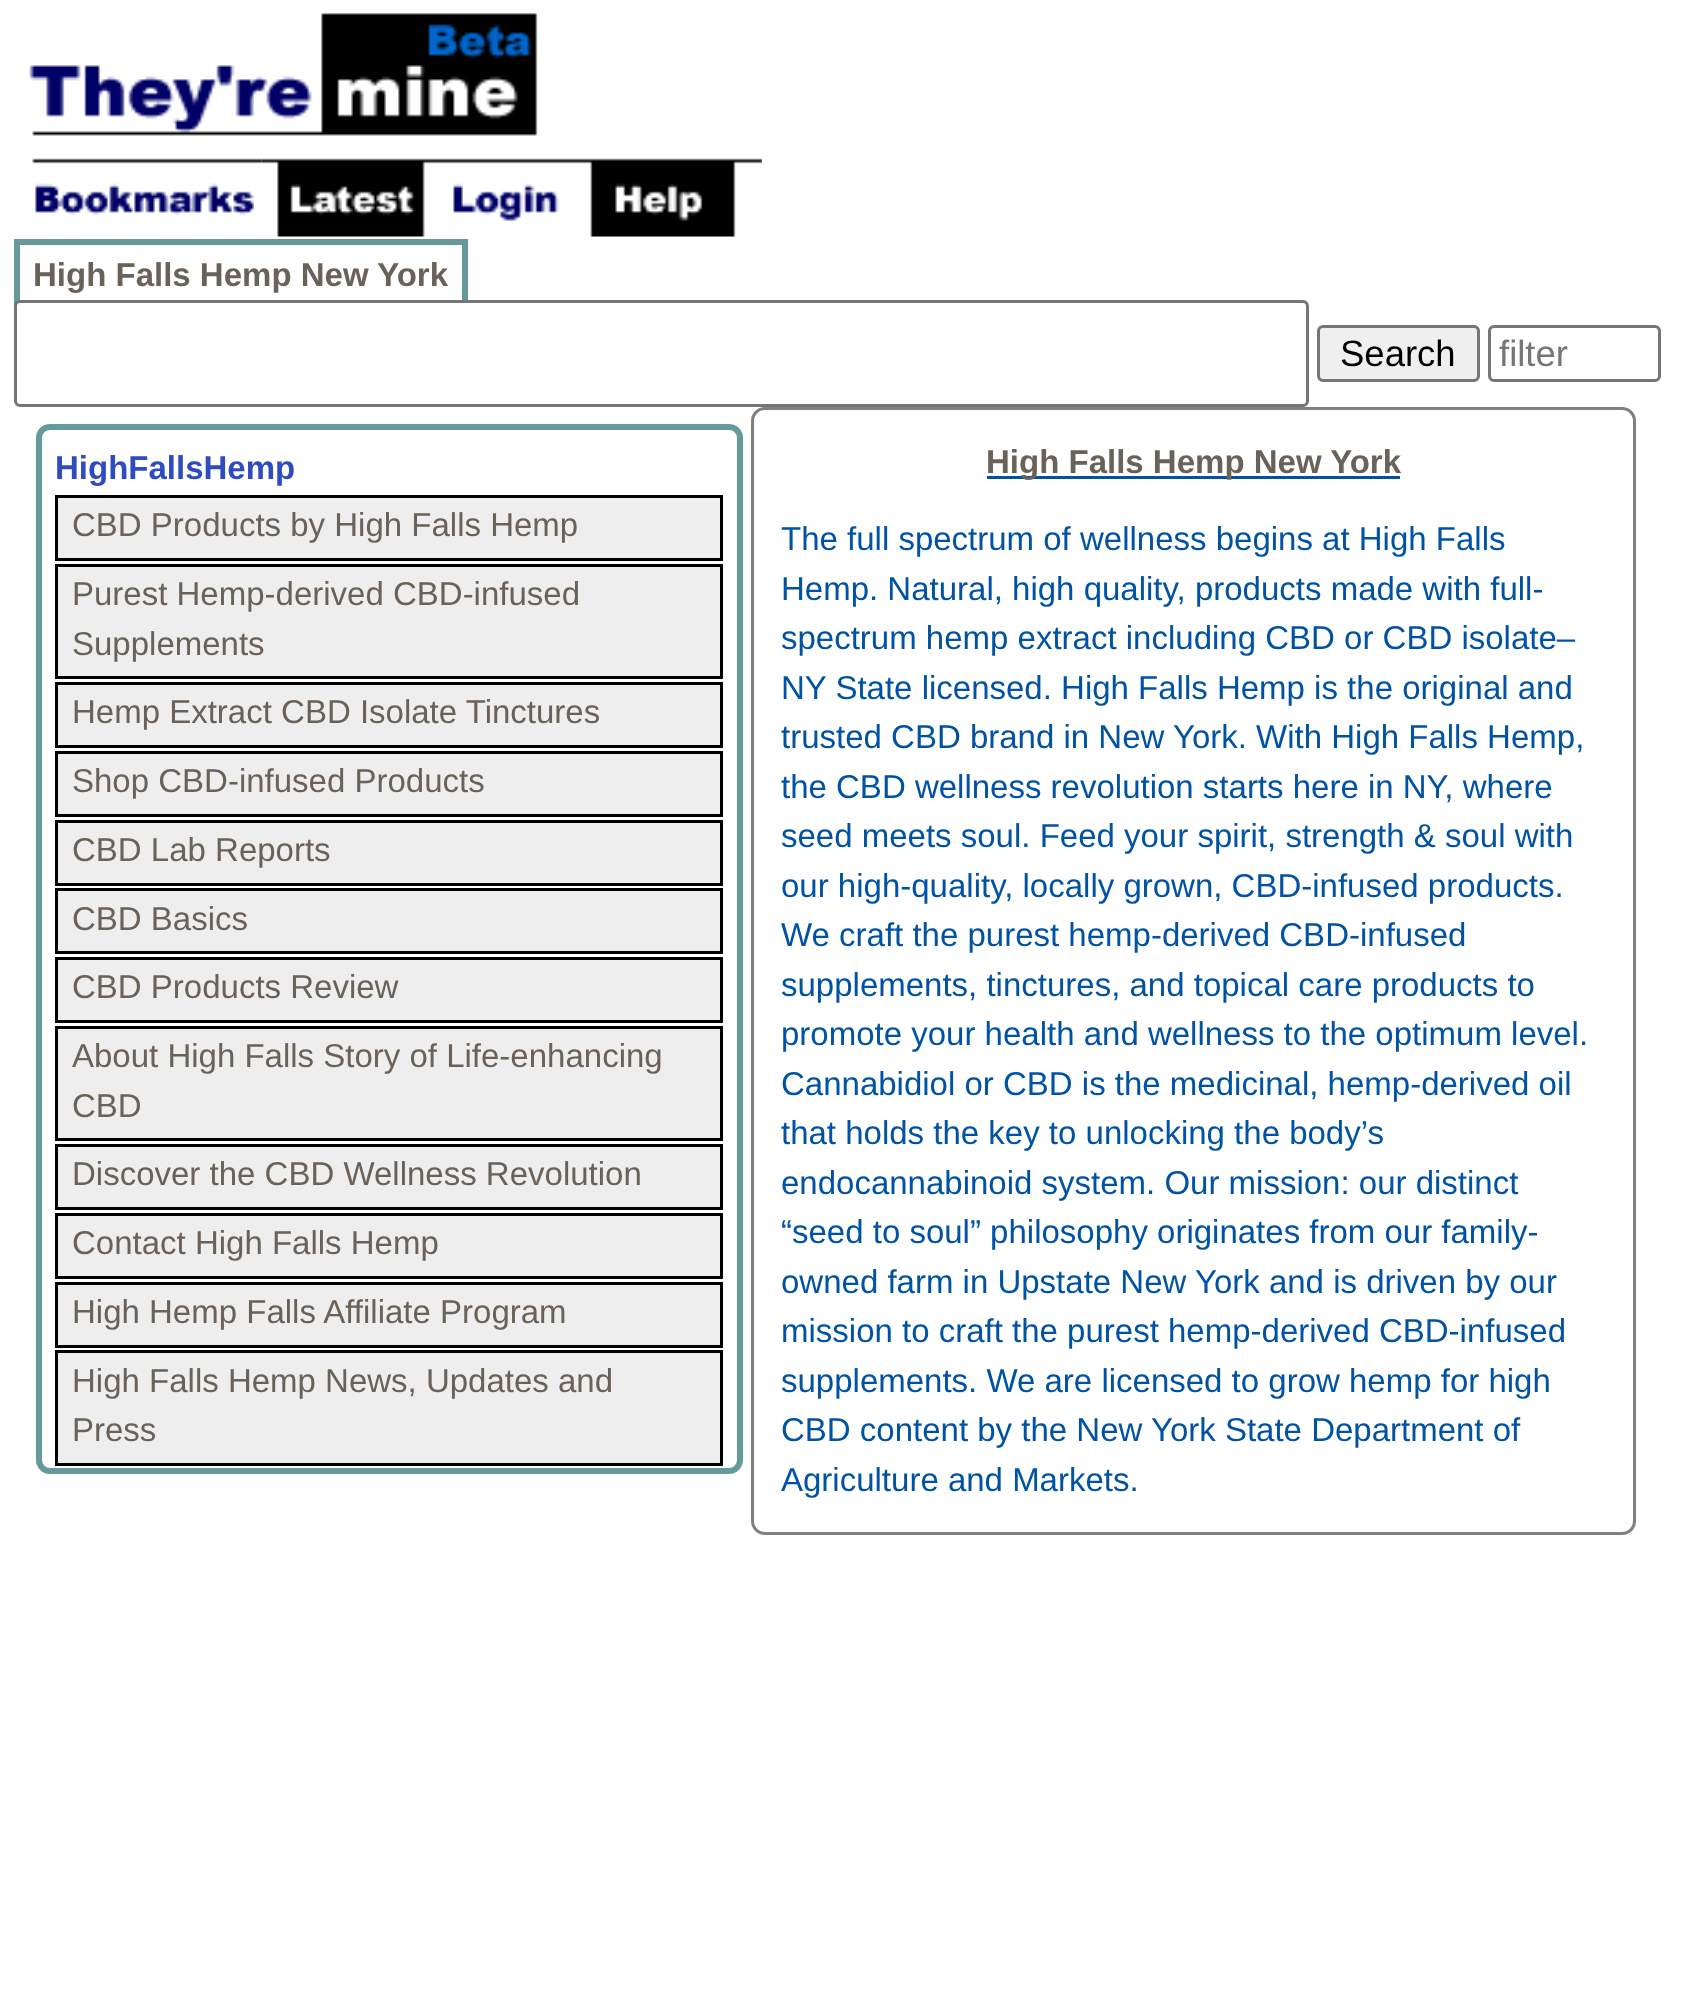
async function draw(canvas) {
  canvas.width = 1691
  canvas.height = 1992
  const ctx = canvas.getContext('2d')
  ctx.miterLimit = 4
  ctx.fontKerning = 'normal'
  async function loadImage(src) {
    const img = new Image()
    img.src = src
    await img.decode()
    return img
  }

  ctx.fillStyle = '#fff'
  ctx.fillRect(0, 0, 1691, 1992)
  ctx.drawImage(await loadImage('image0.png'), 29, 13, 509, 123)
  ctx.drawImage(await loadImage('image1.png'), 32, 158, 230, 58)
  ctx.drawImage(await loadImage('image2.png'), 261, 158, 179, 79)
  ctx.drawImage(await loadImage('image3.png'), 440, 158, 132, 63)
  ctx.drawImage(await loadImage('image4.png'), 572, 158, 190, 79)
  ctx.strokeStyle = '#699'
  ctx.lineWidth = 6
  ctx.strokeRect(17, 242, 448, 63)
  ctx.font = 'bold 33px Liberation Sans'
  ctx.fillStyle = '#6a6259'
  ctx.fillText('High Falls Hemp New York', 33, 286)
  ctx.fillStyle = '#fff'
  ctx.beginPath()
  ctx.roundRect(15.5, 301.5, 1292, 104, 4.5)
  ctx.fill()
  ctx.strokeStyle = '#767676'
  ctx.lineWidth = 3
  ctx.stroke()
  ctx.fillStyle = '#efefef'
  ctx.beginPath()
  ctx.roundRect(1318.5, 326.5, 160, 54, 4.5)
  ctx.fill()
  ctx.stroke()
  ctx.font = '36.5px Liberation Sans'
  ctx.fillStyle = '#000'
  ctx.fillText('Search', 1340, 366)
  ctx.beginPath()
  ctx.roundRect(1489.5, 326.5, 170, 54, 4.5)
  ctx.stroke()
  ctx.fillStyle = '#757575'
  ctx.fillText('filter', 1499, 366)
  ctx.beginPath()
  ctx.roundRect(39, 427, 701, 1044, 11)
  ctx.strokeStyle = '#699'
  ctx.lineWidth = 6
  ctx.stroke()
  ctx.font = 'bold 33px Liberation Sans'
  ctx.fillStyle = '#2e4bc2'
  ctx.fillText('HighFallsHemp', 55, 479)
  ctx.fillStyle = '#eee'
  ctx.beginPath()
  ctx.rect(56.5, 496.5, 665, 63)
  ctx.fill()
  ctx.strokeStyle = '#000'
  ctx.lineWidth = 3
  ctx.stroke()
  ctx.font = '33px Liberation Sans'
  ctx.fillStyle = '#6a6259'
  ctx.fillText('CBD Products by High Falls Hemp', 72, 536)
  ctx.fillStyle = '#eee'
  ctx.beginPath()
  ctx.rect(56.5, 565.5, 665, 112)
  ctx.fill()
  ctx.stroke()
  ctx.fillStyle = '#6a6259'
  ctx.fillText('Purest Hemp-derived CBD-infused', 72, 605)
  ctx.fillText('Supplements', 72, 655)
  ctx.fillStyle = '#eee'
  ctx.beginPath()
  ctx.rect(56.5, 683.5, 665, 63)
  ctx.fill()
  ctx.stroke()
  ctx.fillStyle = '#6a6259'
  ctx.fillText('Hemp Extract CBD Isolate Tinctures', 72, 723)
  ctx.fillStyle = '#eee'
  ctx.beginPath()
  ctx.rect(56.5, 752.5, 665, 63)
  ctx.fill()
  ctx.stroke()
  ctx.fillStyle = '#6a6259'
  ctx.fillText('Shop CBD-infused Products', 72, 792)
  ctx.fillStyle = '#eee'
  ctx.beginPath()
  ctx.rect(56.5, 821.5, 665, 63)
  ctx.fill()
  ctx.stroke()
  ctx.fillStyle = '#6a6259'
  ctx.fillText('CBD Lab Reports', 72, 861)
  ctx.fillStyle = '#eee'
  ctx.beginPath()
  ctx.rect(56.5, 889.5, 665, 63)
  ctx.fill()
  ctx.stroke()
  ctx.fillStyle = '#6a6259'
  ctx.fillText('CBD Basics', 72, 930)
  ctx.fillStyle = '#eee'
  ctx.beginPath()
  ctx.rect(56.5, 958.5, 665, 63)
  ctx.fill()
  ctx.stroke()
  ctx.fillStyle = '#6a6259'
  ctx.fillText('CBD Products Review', 72, 998)
  ctx.fillStyle = '#eee'
  ctx.beginPath()
  ctx.rect(56.5, 1027.5, 665, 112)
  ctx.fill()
  ctx.stroke()
  ctx.fillStyle = '#6a6259'
  ctx.fillText('About High Falls Story of Life-enhancing', 72, 1067)
  ctx.fillText('CBD', 72, 1117)
  ctx.fillStyle = '#eee'
  ctx.beginPath()
  ctx.rect(56.5, 1145.5, 665, 63)
  ctx.fill()
  ctx.stroke()
  ctx.fillStyle = '#6a6259'
  ctx.fillText('Discover the CBD Wellness Revolution', 72, 1185)
  ctx.fillStyle = '#eee'
  ctx.beginPath()
  ctx.rect(56.5, 1214.5, 665, 63)
  ctx.fill()
  ctx.stroke()
  ctx.fillStyle = '#6a6259'
  ctx.fillText('Contact High Falls Hemp', 72, 1254)
  ctx.fillStyle = '#eee'
  ctx.beginPath()
  ctx.rect(56.5, 1283.5, 665, 63)
  ctx.fill()
  ctx.stroke()
  ctx.fillStyle = '#6a6259'
  ctx.fillText('High Hemp Falls Affiliate Program', 72, 1323)
  ctx.fillStyle = '#eee'
  ctx.beginPath()
  ctx.rect(56.5, 1351.5, 665, 113)
  ctx.fill()
  ctx.stroke()
  ctx.fillStyle = '#6a6259'
  ctx.fillText('High Falls Hemp News, Updates and', 72, 1392)
  ctx.fillText('Press', 72, 1441)
  ctx.beginPath()
  ctx.roundRect(752.5, 408.5, 882, 1125, 12.5)
  ctx.strokeStyle = '#808080'
  ctx.stroke()
  ctx.fillStyle = '#0052a4'
  ctx.fillRect(987, 476, 413, 3)
  ctx.font = 'bold 33px Liberation Sans'
  ctx.fillStyle = '#6a6259'
  ctx.fillText('High Falls Hemp New York', 986, 473)
  ctx.font = '33px Liberation Sans'
  ctx.fillStyle = '#0052a4'
  ctx.fillText('The full spectrum of wellness begins at High Falls', 781, 550)
  ctx.fillText('Hemp. Natural, high quality, products made with full-', 781, 600)
  ctx.fillText('spectrum hemp extract including CBD or CBD isolate–', 781, 649)
  ctx.fillText('NY State licensed. High Falls Hemp is the original and', 781, 699)
  ctx.fillText('trusted CBD brand in New York. With High Falls Hemp,', 781, 748)
  ctx.fillText('the CBD wellness revolution starts here in NY, where', 781, 798)
  ctx.fillText('seed meets soul. Feed your spirit, strength & soul with', 781, 847)
  ctx.fillText('our high-quality, locally grown, CBD-infused products.', 781, 897)
  ctx.fillText('We craft the purest hemp-derived CBD-infused', 781, 946)
  ctx.fillText('supplements, tinctures, and topical care products to', 781, 996)
  ctx.fillText('promote your health and wellness to the optimum level.', 781, 1045)
  ctx.fillText('Cannabidiol or CBD is the medicinal, hemp-derived oil', 781, 1095)
  ctx.fillText('that holds the key to unlocking the body’s', 781, 1144)
  ctx.fillText('endocannabinoid system. Our mission: our distinct', 781, 1194)
  ctx.fillText('“seed to soul” philosophy originates from our family-', 781, 1243)
  ctx.fillText('owned farm in Upstate New York and is driven by our', 781, 1293)
  ctx.fillText('mission to craft the purest hemp-derived CBD-infused', 781, 1342)
  ctx.fillText('supplements. We are licensed to grow hemp for high', 781, 1392)
  ctx.fillText('CBD content by the New York State Department of', 781, 1441)
  ctx.fillText('Agriculture and Markets.', 781, 1491)
}

draw(document.querySelector('canvas'))
